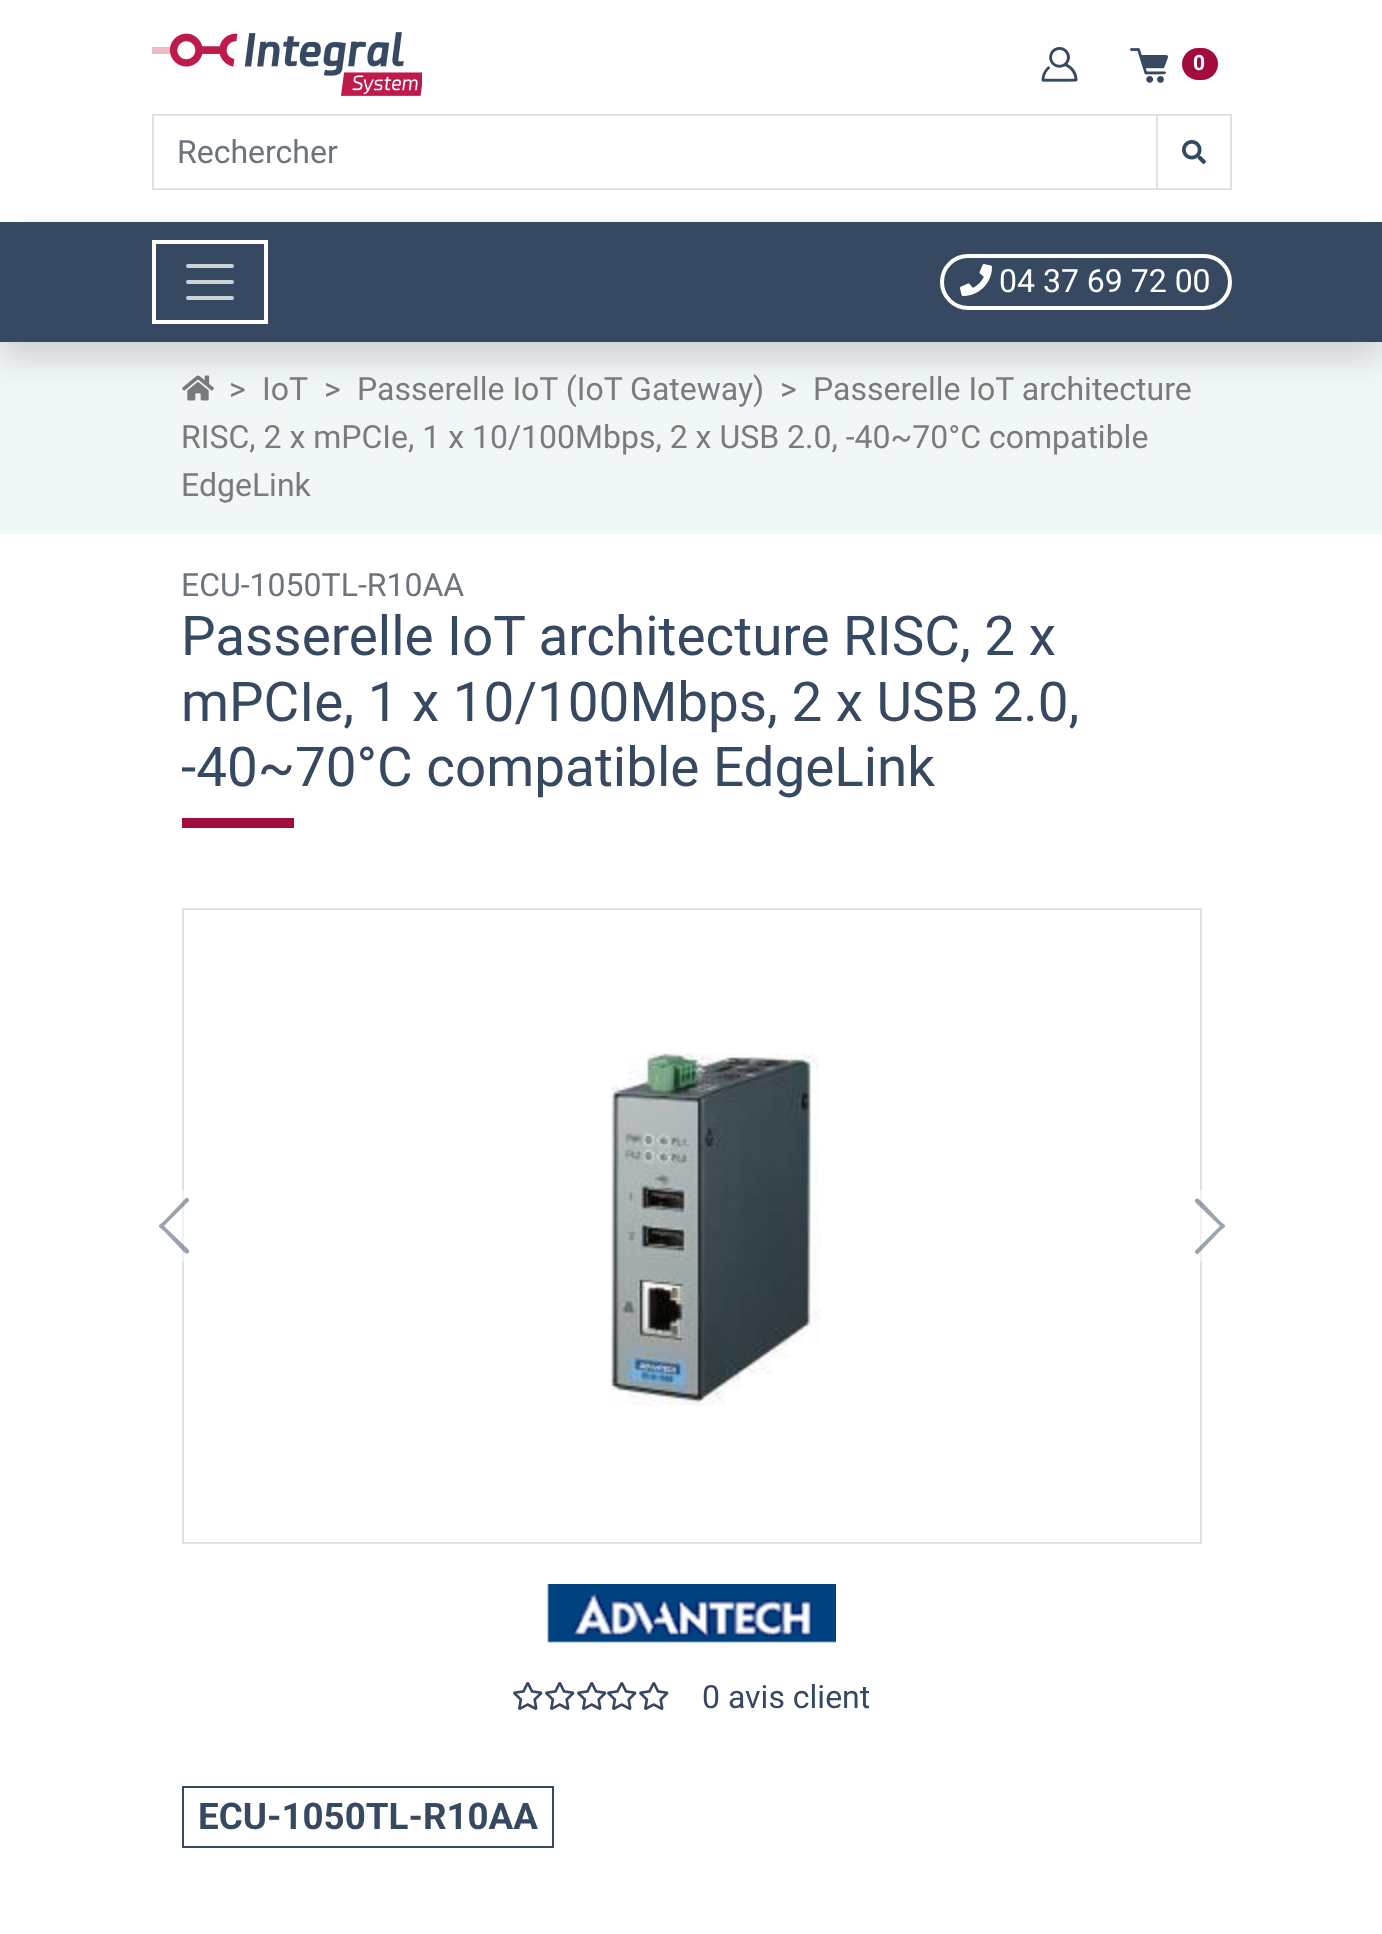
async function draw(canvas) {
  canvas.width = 1382
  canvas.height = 1934
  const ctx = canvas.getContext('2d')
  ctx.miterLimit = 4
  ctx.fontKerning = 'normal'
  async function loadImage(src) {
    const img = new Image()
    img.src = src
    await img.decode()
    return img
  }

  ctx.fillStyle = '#fff'
  ctx.fillRect(0, 0, 1382, 1934)
  ctx.drawImage(await loadImage('image0.png'), 152, 32, 270, 64)
  ctx.drawImage(await loadImage('image1.png'), 1041, 47, 37, 35)
  ctx.drawImage(await loadImage('image2.png'), 1130, 48, 38, 35)
  ctx.fillStyle = '#a20c3d'
  ctx.beginPath()
  ctx.roundRect(1182, 48, 36, 32, 16)
  ctx.fill()
  ctx.font = 'bold 21px Roboto'
  ctx.fillStyle = '#fff'
  ctx.fillText('0', 1193, 70)
  ctx.strokeStyle = '#dee2e6'
  ctx.lineWidth = 2
  ctx.strokeRect(153, 115, 1004, 74)
  ctx.font = '32px Roboto'
  ctx.fillStyle = '#6c757d'
  ctx.fillText('Rechercher', 177, 163)
  ctx.strokeRect(1157, 115, 74, 74)
  ctx.drawImage(await loadImage('image3.png'), 1182, 140, 24, 24)
  ctx.fillStyle = '#f1f6f7'
  ctx.fillRect(0, 342, 1382, 192)
  ctx.drawImage(await loadImage('image5.png'), 182, 375, 32, 26)
  ctx.fillStyle = '#00000026'
  ctx.filter = 'blur(16px)'
  ctx.beginPath()
  ctx.rect(0, 238, 1382, 120)
  ctx.fill()
  ctx.filter = 'none'
  ctx.fillStyle = '#364961'
  ctx.fillRect(0, 222, 1382, 120)
  ctx.strokeStyle = '#fff'
  ctx.lineWidth = 4
  ctx.strokeRect(154, 242, 112, 80)
  ctx.beginPath()
  ctx.moveTo(188, 266)
  ctx.lineTo(232, 266)
  ctx.moveTo(188, 282)
  ctx.lineTo(232, 282)
  ctx.moveTo(188, 298)
  ctx.lineTo(232, 298)
  ctx.strokeStyle = '#cdd2d8'
  ctx.lineCap = 'round'
  ctx.stroke()
  ctx.beginPath()
  ctx.roundRect(942, 256, 288, 52, 26)
  ctx.strokeStyle = '#fff'
  ctx.stroke()
  ctx.drawImage(await loadImage('image4.png'), 960, 264, 32, 32)
  ctx.fillStyle = '#fff'
  ctx.fillText('04 37 69 72 00', 999, 292)
  ctx.fillStyle = '#797b7c'
  ctx.fillText('>', 229, 400)
  ctx.fillText('IoT', 262, 400)
  ctx.fillText('>', 324, 400)
  ctx.fillText('Passerelle IoT (IoT Gateway)', 357, 400)
  ctx.fillText('>', 780, 400)
  ctx.fillText('Passerelle IoT architecture', 813, 400)
  ctx.fillText('RISC, 2 x mPCIe, 1 x 10/100Mbps, 2 x USB 2.0, -40~70°C compatible', 181, 448)
  ctx.fillText('EdgeLink', 181, 496)
  ctx.fillStyle = '#6c757d'
  ctx.fillText('ECU-1050TL-R10AA', 181, 596)
  ctx.font = '54.8px Roboto'
  ctx.fillStyle = '#364961'
  ctx.fillText('Passerelle IoT architecture RISC, 2 x', 181, 655)
  ctx.fillText('mPCIe, 1 x 10/100Mbps, 2 x USB 2.0,', 181, 721)
  ctx.fillText('-40~70°C compatible EdgeLink', 181, 786)
  ctx.fillStyle = '#a20c3d'
  ctx.fillRect(182, 818, 112, 10)
  ctx.strokeStyle = '#dee2e6'
  ctx.lineWidth = 2
  ctx.strokeRect(183, 909, 1018, 634)
  ctx.drawImage(await loadImage('image6.png'), 610, 1053, 211, 353)
  ctx.save()
  ctx.beginPath()
  ctx.rect(152, 908, 1080, 636)
  ctx.clip()
  ctx.fillStyle = '#ffffff80'
  ctx.beginPath()
  ctx.roundRect(150, 1190, 48, 72, 8)
  ctx.fill()
  ctx.restore()
  ctx.fillStyle = '#36496180'
  ctx.beginPath()
  ctx.moveTo(188, 1253)
  ctx.lineTo(189, 1253)
  ctx.bezierCurveTo(189, 1252, 189, 1251, 189, 1250)
  ctx.lineTo(164, 1226)
  ctx.lineTo(189, 1201)
  ctx.bezierCurveTo(190, 1200, 187, 1197, 186, 1198)
  ctx.lineTo(164, 1221)
  ctx.bezierCurveTo(157, 1227, 157, 1225, 164, 1231)
  ctx.lineTo(181, 1249)
  ctx.bezierCurveTo(183, 1251, 186, 1255, 188, 1253)
  ctx.closePath()
  ctx.fill()
  ctx.save()
  ctx.beginPath()
  ctx.rect(152, 908, 1080, 636)
  ctx.clip()
  ctx.fillStyle = '#ffffff80'
  ctx.beginPath()
  ctx.roundRect(1186, 1190, 48, 72, 8)
  ctx.fill()
  ctx.restore()
  ctx.beginPath()
  ctx.moveTo(1196, 1199)
  ctx.lineTo(1195, 1199)
  ctx.bezierCurveTo(1195, 1200, 1195, 1201, 1195, 1202)
  ctx.lineTo(1220, 1226)
  ctx.lineTo(1195, 1251)
  ctx.bezierCurveTo(1194, 1252, 1197, 1255, 1198, 1254)
  ctx.lineTo(1220, 1231)
  ctx.bezierCurveTo(1227, 1225, 1227, 1227, 1220, 1221)
  ctx.lineTo(1203, 1203)
  ctx.bezierCurveTo(1201, 1201, 1198, 1197, 1196, 1199)
  ctx.closePath()
  ctx.fill()
  ctx.drawImage(await loadImage('image7.png'), 547, 1584, 289, 59)
  ctx.drawImage(await loadImage('image8.png'), 513, 1682, 30, 28)
  ctx.drawImage(await loadImage('image8.png'), 545, 1682, 30, 28)
  ctx.drawImage(await loadImage('image8.png'), 577, 1682, 30, 28)
  ctx.drawImage(await loadImage('image8.png'), 607, 1682, 30, 28)
  ctx.drawImage(await loadImage('image8.png'), 639, 1682, 30, 28)
  ctx.font = '32px Roboto'
  ctx.fillStyle = '#364961'
  ctx.fillText('0 avis client', 702, 1708)
  ctx.strokeStyle = '#364961'
  ctx.strokeRect(183, 1787, 370, 60)
  ctx.font = 'bold 36.75px Roboto'
  ctx.fillText('ECU-1050TL-R10AA', 198, 1829)
}

draw(document.querySelector('canvas'))
